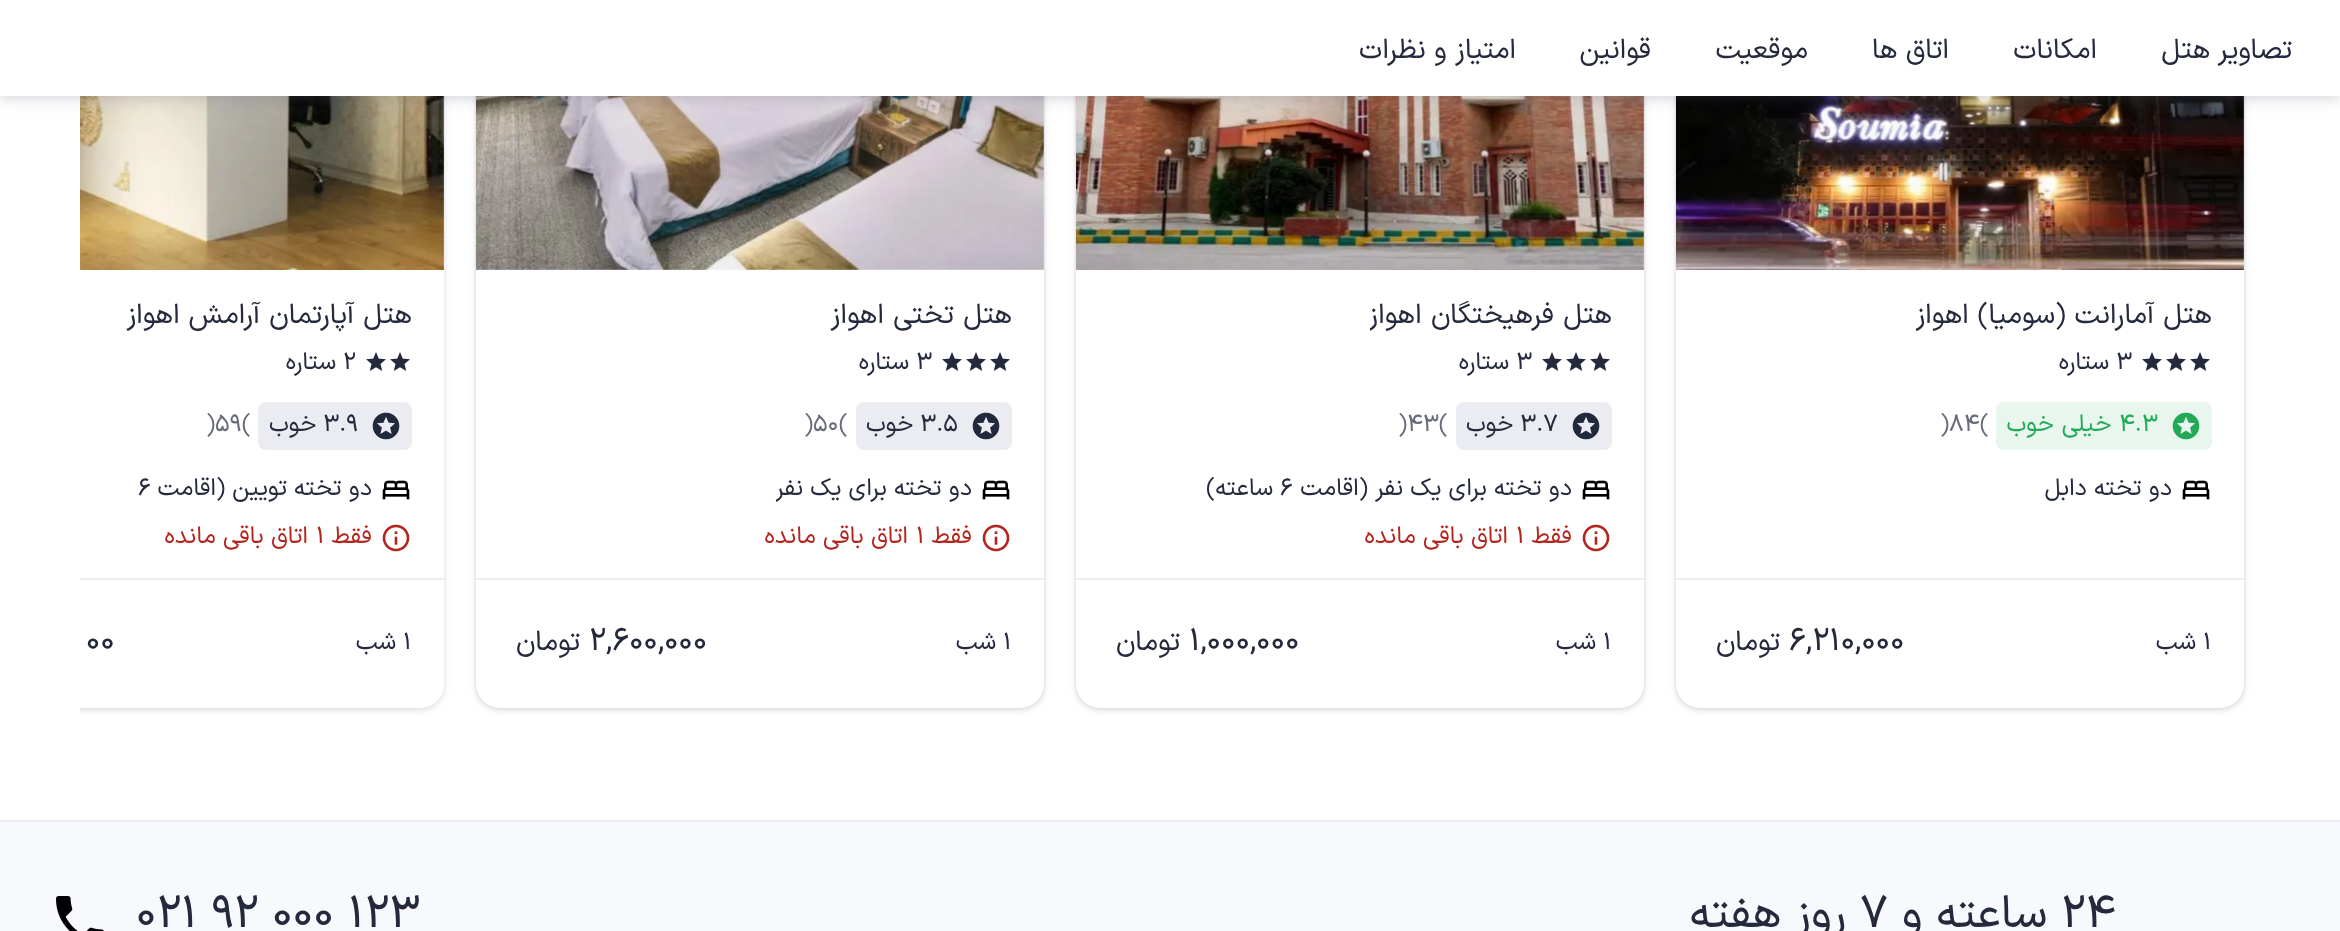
async function draw(canvas) {
  canvas.width = 2340
  canvas.height = 931
  const ctx = canvas.getContext('2d')
  ctx.miterLimit = 4
  ctx.fontKerning = 'normal'
  async function loadImage(src) {
    const img = new Image()
    img.src = src
    await img.decode()
    return img
  }

  ctx.fillStyle = '#fff'
  ctx.fillRect(0, 0, 2340, 931)
  ctx.fillStyle = '#6164751f'
  ctx.filter = 'blur(3px)'
  ctx.beginPath()
  ctx.roundRect(1676, -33, 568, 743, 24)
  ctx.fill()
  ctx.filter = 'none'
  ctx.filter = 'blur(1px)'
  ctx.beginPath()
  ctx.roundRect(1676, -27, 568, 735, 24)
  ctx.fill()
  ctx.filter = 'none'
  ctx.filter = 'blur(3px)'
  ctx.beginPath()
  ctx.roundRect(1676, -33, 568, 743, 24)
  ctx.fill()
  ctx.filter = 'none'
  ctx.fillStyle = '#fff'
  ctx.beginPath()
  ctx.roundRect(1676, -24, 568, 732, 24)
  ctx.fill()
  ctx.drawImage(await loadImage('image0.png'), 1676, 96, 568, 174)
  ctx.fillStyle = '#6164751f'
  ctx.filter = 'blur(3px)'
  ctx.beginPath()
  ctx.roundRect(1076, -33, 568, 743, 24)
  ctx.fill()
  ctx.filter = 'none'
  ctx.filter = 'blur(1px)'
  ctx.beginPath()
  ctx.roundRect(1076, -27, 568, 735, 24)
  ctx.fill()
  ctx.filter = 'none'
  ctx.filter = 'blur(3px)'
  ctx.beginPath()
  ctx.roundRect(1076, -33, 568, 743, 24)
  ctx.fill()
  ctx.filter = 'none'
  ctx.fillStyle = '#fff'
  ctx.beginPath()
  ctx.roundRect(1076, -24, 568, 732, 24)
  ctx.fill()
  ctx.drawImage(await loadImage('image4.png'), 1076, 96, 568, 174)
  ctx.fillStyle = '#6164751f'
  ctx.filter = 'blur(3px)'
  ctx.beginPath()
  ctx.roundRect(476, -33, 568, 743, 24)
  ctx.fill()
  ctx.filter = 'none'
  ctx.filter = 'blur(1px)'
  ctx.beginPath()
  ctx.roundRect(476, -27, 568, 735, 24)
  ctx.fill()
  ctx.filter = 'none'
  ctx.filter = 'blur(3px)'
  ctx.beginPath()
  ctx.roundRect(476, -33, 568, 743, 24)
  ctx.fill()
  ctx.filter = 'none'
  ctx.fillStyle = '#fff'
  ctx.beginPath()
  ctx.roundRect(476, -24, 568, 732, 24)
  ctx.fill()
  ctx.drawImage(await loadImage('image7.png'), 476, 96, 568, 174)
  ctx.save()
  ctx.beginPath()
  ctx.rect(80, 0, 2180, 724)
  ctx.clip()
  ctx.fillStyle = '#6164751f'
  ctx.filter = 'blur(3px)'
  ctx.beginPath()
  ctx.roundRect(-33, -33, 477, 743, 24)
  ctx.fill()
  ctx.filter = 'none'
  ctx.filter = 'blur(3px)'
  ctx.beginPath()
  ctx.roundRect(-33, -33, 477, 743, 24)
  ctx.fill()
  ctx.filter = 'none'
  ctx.restore()
  ctx.beginPath()
  ctx.moveTo(80, -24)
  ctx.lineTo(420, -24)
  ctx.bezierCurveTo(433.5, -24, 444, -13.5, 444, 0)
  ctx.lineTo(444, 684)
  ctx.bezierCurveTo(444, 697.5, 433.5, 708, 420, 708)
  ctx.lineTo(80, 708)
  ctx.closePath()
  ctx.fill()
  ctx.drawImage(await loadImage('image8.png'), 80, 96, 364, 174)
  ctx.fillStyle = '#6164751f'
  ctx.filter = 'blur(4px)'
  ctx.beginPath()
  ctx.rect(0, 4, 2340, 96)
  ctx.fill()
  ctx.filter = 'none'
  ctx.filter = 'blur(10px)'
  ctx.beginPath()
  ctx.rect(0, 2, 2340, 96)
  ctx.fill()
  ctx.filter = 'none'
  ctx.fillStyle = '#fff'
  ctx.fillRect(0, 0, 2340, 96)
  ctx.wordSpacing = '-1px'
  ctx.direction = 'rtl'
  ctx.font = '28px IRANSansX'
  ctx.fillStyle = '#24293c'
  ctx.fillText('تصاویر هتل', 2292, 58)
  ctx.wordSpacing = '0px'
  ctx.fillText('امکانات', 2097, 58)
  ctx.fillText('اتاق ها', 1949, 58)
  ctx.fillText('موقعیت', 1808, 58)
  ctx.fillText('قوانین', 1651, 58)
  ctx.fillText('امتیاز و نظرات', 1516, 58)
  ctx.save()
  ctx.beginPath()
  ctx.rect(1916, 294, 296, 48)
  ctx.clip()
  ctx.wordSpacing = '0.5px'
  ctx.fillText('هتل آمارانت (سومیا) اهواز', 2212, 323)
  ctx.restore()
  ctx.drawImage(await loadImage('image1.png'), 2190, 352, 20, 19)
  ctx.drawImage(await loadImage('image1.png'), 2166, 352, 20, 19)
  ctx.drawImage(await loadImage('image1.png'), 2142, 352, 20, 19)
  ctx.direction = 'ltr'
  ctx.font = '24px IRANSansX'
  ctx.fillText('۳', 2116, 369)
  ctx.direction = 'rtl'
  ctx.fillText('ستاره', 2109, 369)
  ctx.fillStyle = '#e9f6ee'
  ctx.beginPath()
  ctx.roundRect(1996, 402, 216, 48, 8)
  ctx.fill()
  ctx.drawImage(await loadImage('image2.png'), 2172, 412, 28, 28)
  ctx.direction = 'ltr'
  ctx.fillStyle = '#22a958'
  ctx.fillText('۴.۳', 2119, 431)
  ctx.wordSpacing = '1px'
  ctx.direction = 'rtl'
  ctx.fillText('خیلی خوب', 2111, 431)
  ctx.wordSpacing = '0px'
  ctx.direction = 'ltr'
  ctx.fillStyle = '#686c79'
  ctx.fillText('(', 1980, 431)
  ctx.fillText('۸۴', 1949, 431)
  ctx.fillText(')', 1940, 431)
  ctx.drawImage(await loadImage('image3.png'), 2182, 480, 28, 20)
  ctx.direction = 'rtl'
  ctx.fillStyle = '#24293c'
  ctx.fillText('دو تخته دابل', 2172, 495)
  ctx.fillStyle = '#ebecf2'
  ctx.fillRect(1676, 578, 568, 2)
  ctx.direction = 'ltr'
  ctx.fillStyle = '#24293c'
  ctx.fillText('۱', 2203, 649)
  ctx.direction = 'rtl'
  ctx.fillText('شب', 2196, 649)
  ctx.direction = 'ltr'
  ctx.font = '32px IRANSansX'
  ctx.fillText('۶,۲۱۰,۰۰۰', 1789, 650)
  ctx.direction = 'rtl'
  ctx.font = '28px IRANSansX'
  ctx.fillText('تومان', 1780, 650)
  ctx.save()
  ctx.beginPath()
  ctx.rect(1370, 294, 242, 48)
  ctx.clip()
  ctx.wordSpacing = '1px'
  ctx.fillText('هتل فرهیختگان اهواز', 1612, 323)
  ctx.restore()
  ctx.drawImage(await loadImage('image1.png'), 1590, 352, 20, 19)
  ctx.drawImage(await loadImage('image1.png'), 1566, 352, 20, 19)
  ctx.drawImage(await loadImage('image1.png'), 1542, 352, 20, 19)
  ctx.direction = 'ltr'
  ctx.font = '24px IRANSansX'
  ctx.fillText('۳', 1516, 369)
  ctx.direction = 'rtl'
  ctx.fillText('ستاره', 1509, 369)
  ctx.fillStyle = '#ebecf2'
  ctx.beginPath()
  ctx.roundRect(1456, 402, 156, 48, 8)
  ctx.fill()
  ctx.drawImage(await loadImage('image5.png'), 1572, 412, 28, 28)
  ctx.direction = 'ltr'
  ctx.fillStyle = '#24293c'
  ctx.fillText('۳.۷', 1520, 431)
  ctx.direction = 'rtl'
  ctx.fillText('خوب', 1513, 431)
  ctx.direction = 'ltr'
  ctx.fillStyle = '#686c79'
  ctx.fillText('(', 1439, 431)
  ctx.fillText('۴۳', 1407, 431)
  ctx.fillText(')', 1398, 431)
  ctx.drawImage(await loadImage('image3.png'), 1582, 480, 28, 20)
  ctx.direction = 'rtl'
  ctx.fillStyle = '#24293c'
  ctx.fillText('دو تخته برای یک نفر (اقامت', 1572, 495)
  ctx.direction = 'ltr'
  ctx.fillText('۶', 1280, 495)
  ctx.direction = 'rtl'
  ctx.fillText('ساعته)', 1273, 495)
  ctx.drawImage(await loadImage('image6.png'), 1582, 524, 28, 28)
  ctx.fillStyle = '#b3261e'
  ctx.fillText('فقط', 1572, 543)
  ctx.direction = 'ltr'
  ctx.fillText('۱', 1516, 543)
  ctx.direction = 'rtl'
  ctx.fillText('اتاق باقی مانده', 1508, 543)
  ctx.fillStyle = '#ebecf2'
  ctx.fillRect(1076, 578, 568, 2)
  ctx.direction = 'ltr'
  ctx.fillStyle = '#24293c'
  ctx.fillText('۱', 1603, 649)
  ctx.direction = 'rtl'
  ctx.fillText('شب', 1596, 649)
  ctx.direction = 'ltr'
  ctx.font = '32px IRANSansX'
  ctx.fillText('۱,۰۰۰,۰۰۰', 1189, 650)
  ctx.direction = 'rtl'
  ctx.font = '28px IRANSansX'
  ctx.fillText('تومان', 1180, 650)
  ctx.wordSpacing = '1px'
  ctx.fillText('هتل تختی اهواز', 1012, 323)
  ctx.drawImage(await loadImage('image1.png'), 990, 352, 20, 19)
  ctx.drawImage(await loadImage('image1.png'), 966, 352, 20, 19)
  ctx.drawImage(await loadImage('image1.png'), 942, 352, 20, 19)
  ctx.wordSpacing = '0px'
  ctx.direction = 'ltr'
  ctx.font = '24px IRANSansX'
  ctx.fillText('۳', 916, 369)
  ctx.direction = 'rtl'
  ctx.fillText('ستاره', 909, 369)
  ctx.fillStyle = '#ebecf2'
  ctx.beginPath()
  ctx.roundRect(856, 402, 156, 48, 8)
  ctx.fill()
  ctx.drawImage(await loadImage('image5.png'), 972, 412, 28, 28)
  ctx.direction = 'ltr'
  ctx.fillStyle = '#24293c'
  ctx.fillText('۳.۵', 920, 431)
  ctx.direction = 'rtl'
  ctx.fillText('خوب', 913, 431)
  ctx.direction = 'ltr'
  ctx.fillStyle = '#686c79'
  ctx.fillText('(', 839, 431)
  ctx.fillText('۵۰', 813, 431)
  ctx.fillText(')', 804, 431)
  ctx.drawImage(await loadImage('image3.png'), 982, 480, 28, 20)
  ctx.save()
  ctx.beginPath()
  ctx.rect(776, 474, 196, 32)
  ctx.clip()
  ctx.direction = 'rtl'
  ctx.fillStyle = '#24293c'
  ctx.fillText('دو تخته برای یک نفر', 972, 495)
  ctx.restore()
  ctx.drawImage(await loadImage('image6.png'), 982, 524, 28, 28)
  ctx.direction = 'rtl'
  ctx.fillStyle = '#b3261e'
  ctx.fillText('فقط', 972, 543)
  ctx.direction = 'ltr'
  ctx.fillText('۱', 916, 543)
  ctx.direction = 'rtl'
  ctx.fillText('اتاق باقی مانده', 908, 543)
  ctx.fillStyle = '#ebecf2'
  ctx.fillRect(476, 578, 568, 2)
  ctx.direction = 'ltr'
  ctx.fillStyle = '#24293c'
  ctx.fillText('۱', 1003, 649)
  ctx.direction = 'rtl'
  ctx.fillText('شب', 996, 649)
  ctx.direction = 'ltr'
  ctx.font = '32px IRANSansX'
  ctx.fillText('۲,۶۰۰,۰۰۰', 589, 650)
  ctx.direction = 'rtl'
  ctx.font = '28px IRANSansX'
  ctx.fillText('تومان', 580, 650)
  ctx.wordSpacing = '0.5px'
  ctx.fillText('هتل آپارتمان آرامش اهواز', 412, 323)
  ctx.drawImage(await loadImage('image1.png'), 390, 352, 20, 19)
  ctx.drawImage(await loadImage('image1.png'), 366, 352, 20, 19)
  ctx.wordSpacing = '0px'
  ctx.direction = 'ltr'
  ctx.font = '24px IRANSansX'
  ctx.fillText('۲', 343, 369)
  ctx.direction = 'rtl'
  ctx.fillText('ستاره', 336, 369)
  ctx.fillStyle = '#ebecf2'
  ctx.beginPath()
  ctx.roundRect(258, 402, 154, 48, 8)
  ctx.fill()
  ctx.drawImage(await loadImage('image5.png'), 372, 412, 28, 28)
  ctx.direction = 'ltr'
  ctx.fillStyle = '#24293c'
  ctx.fillText('۳.۹', 323, 431)
  ctx.direction = 'rtl'
  ctx.fillText('خوب', 316, 431)
  ctx.direction = 'ltr'
  ctx.fillStyle = '#686c79'
  ctx.fillText('(', 242, 431)
  ctx.fillText('۵۹', 215, 431)
  ctx.fillText(')', 206, 431)
  ctx.drawImage(await loadImage('image3.png'), 382, 480, 28, 20)
  ctx.direction = 'rtl'
  ctx.fillStyle = '#24293c'
  ctx.fillText('دو تخته تویین (اقامت', 372, 495)
  ctx.direction = 'ltr'
  ctx.fillText('۶', 138, 495)
  ctx.drawImage(await loadImage('image6.png'), 382, 524, 28, 28)
  ctx.direction = 'rtl'
  ctx.fillStyle = '#b3261e'
  ctx.fillText('فقط', 372, 543)
  ctx.direction = 'ltr'
  ctx.fillText('۱', 316, 543)
  ctx.direction = 'rtl'
  ctx.fillText('اتاق باقی مانده', 308, 543)
  ctx.fillStyle = '#ebecf2'
  ctx.fillRect(80, 578, 364, 2)
  ctx.direction = 'ltr'
  ctx.fillStyle = '#24293c'
  ctx.fillText('۱', 403, 649)
  ctx.direction = 'rtl'
  ctx.fillText('شب', 396, 649)
  ctx.direction = 'ltr'
  ctx.font = '32px IRANSansX'
  ctx.fillText('۰۰', 86, 650)
  ctx.fillStyle = '#f8f9fd'
  ctx.fillRect(0, 822, 2340, 109)
  ctx.fillStyle = '#ebecf2'
  ctx.fillRect(0, 820, 2340, 2)
  ctx.font = '46px IRANSansX'
  ctx.fillStyle = '#24293c'
  ctx.fillText('۲۴', 2061, 927)
  ctx.direction = 'rtl'
  ctx.fillText('ساعته و', 2047, 927)
  ctx.direction = 'ltr'
  ctx.fillText('۷', 1860, 927)
  ctx.direction = 'rtl'
  ctx.fillText('روز هفته', 1846, 927)
  ctx.direction = 'ltr'
  ctx.fillText('۰۲۱ ۹۲ ۰۰۰ ۱۲۳', 136, 927)
  ctx.drawImage(await loadImage('image9.png'), 56, 896, 48, 35)
}

draw(document.querySelector('canvas'))
